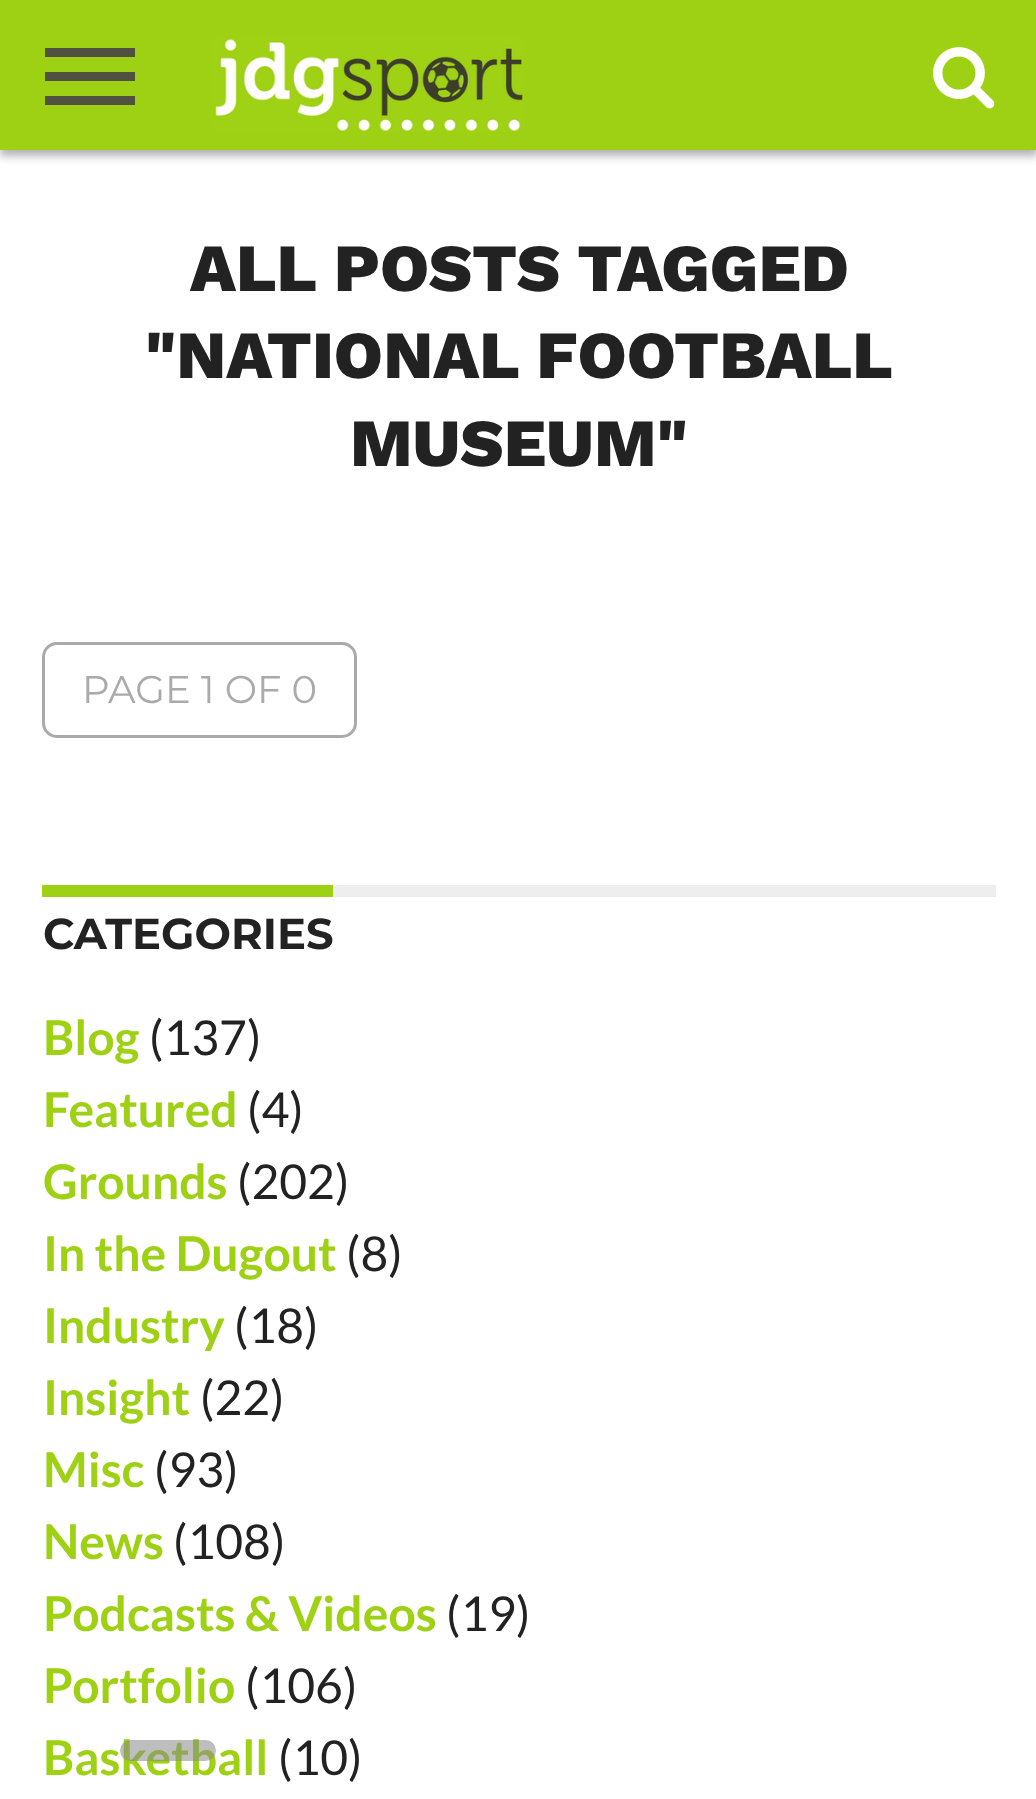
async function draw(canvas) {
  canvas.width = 1036
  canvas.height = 1799
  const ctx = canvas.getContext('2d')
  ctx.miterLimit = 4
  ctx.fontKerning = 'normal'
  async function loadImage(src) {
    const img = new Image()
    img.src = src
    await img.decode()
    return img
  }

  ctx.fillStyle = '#fff'
  ctx.fillRect(0, 0, 1036, 1799)
  ctx.fillStyle = '#0000004d'
  ctx.filter = 'blur(4.5px)'
  ctx.beginPath()
  ctx.rect(0, 6, 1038, 150)
  ctx.fill()
  ctx.filter = 'none'
  ctx.fillStyle = '#9ed114'
  ctx.fillRect(0, 0, 1036, 150)
  ctx.fillStyle = '#505141'
  ctx.fillRect(45, 48, 90, 9)
  ctx.fillRect(45, 72, 90, 9)
  ctx.fillRect(45, 96, 90, 9)
  ctx.drawImage(await loadImage('image0.png'), 213, 38, 312, 93)
  ctx.drawImage(await loadImage('image1.png'), 933, 47, 62, 62)
  ctx.font = '800 67.25px Work Sans'
  ctx.fillStyle = '#222'
  ctx.fillText('ALL POSTS TAGGED', 190, 291)
  ctx.fillText('"NATIONAL FOOTBALL', 145, 378)
  ctx.fillText('MUSEUM"', 350, 466)
  ctx.beginPath()
  ctx.roundRect(43.5, 643.5, 312, 93, 13.5)
  ctx.strokeStyle = '#aaa'
  ctx.lineWidth = 3
  ctx.stroke()
  ctx.font = '38.5px Montserrat'
  ctx.fillStyle = '#aaa'
  ctx.fillText('PAGE 1 OF 0', 82, 703)
  ctx.fillStyle = '#eee'
  ctx.fillRect(333, 885, 663, 12)
  ctx.fillStyle = '#9ed114'
  ctx.fillRect(42, 885, 291, 12)
  ctx.font = 'bold 43.25px Montserrat'
  ctx.fillStyle = '#222'
  ctx.fillText('CATEGORIES', 43, 949)
  ctx.font = 'bold 48px Lato'
  ctx.fillStyle = '#9ed114'
  ctx.fillText('Blog', 43, 1055)
  ctx.font = '48px Lato'
  ctx.fillStyle = '#222'
  ctx.fillText('(137)', 149, 1055)
  ctx.font = 'bold 48px Lato'
  ctx.fillStyle = '#9ed114'
  ctx.fillText('Featured', 43, 1127)
  ctx.font = '48px Lato'
  ctx.fillStyle = '#222'
  ctx.fillText('(4)', 247, 1127)
  ctx.font = 'bold 48px Lato'
  ctx.fillStyle = '#9ed114'
  ctx.fillText('Grounds', 43, 1199)
  ctx.font = '48px Lato'
  ctx.fillStyle = '#222'
  ctx.fillText('(202)', 237, 1199)
  ctx.font = 'bold 48px Lato'
  ctx.fillStyle = '#9ed114'
  ctx.fillText('In the Dugout', 43, 1271)
  ctx.font = '48px Lato'
  ctx.fillStyle = '#222'
  ctx.fillText('(8)', 346, 1271)
  ctx.font = 'bold 48px Lato'
  ctx.fillStyle = '#9ed114'
  ctx.fillText('Industry', 43, 1343)
  ctx.font = '48px Lato'
  ctx.fillStyle = '#222'
  ctx.fillText('(18)', 234, 1343)
  ctx.font = 'bold 48px Lato'
  ctx.fillStyle = '#9ed114'
  ctx.fillText('Insight', 43, 1415)
  ctx.font = '48px Lato'
  ctx.fillStyle = '#222'
  ctx.fillText('(22)', 200, 1415)
  ctx.font = 'bold 48px Lato'
  ctx.fillStyle = '#9ed114'
  ctx.fillText('Misc', 43, 1487)
  ctx.font = '48px Lato'
  ctx.fillStyle = '#222'
  ctx.fillText('(93)', 154, 1487)
  ctx.font = 'bold 48px Lato'
  ctx.fillStyle = '#9ed114'
  ctx.fillText('News', 43, 1559)
  ctx.font = '48px Lato'
  ctx.fillStyle = '#222'
  ctx.fillText('(108)', 173, 1559)
  ctx.font = 'bold 48px Lato'
  ctx.fillStyle = '#9ed114'
  ctx.fillText('Podcasts & Videos', 43, 1631)
  ctx.font = '48px Lato'
  ctx.fillStyle = '#222'
  ctx.fillText('(19)', 446, 1631)
  ctx.font = 'bold 48px Lato'
  ctx.fillStyle = '#9ed114'
  ctx.fillText('Portfolio', 43, 1703)
  ctx.font = '48px Lato'
  ctx.fillStyle = '#222'
  ctx.fillText('(106)', 245, 1703)
  ctx.font = 'bold 48px Lato'
  ctx.fillStyle = '#9ed114'
  ctx.fillText('Basketball', 43, 1775)
  ctx.font = '48px Lato'
  ctx.fillStyle = '#222'
  ctx.fillText('(10)', 278, 1775)
  ctx.fillStyle = '#8888888c'
  ctx.beginPath()
  ctx.roundRect(120, 1740, 96, 21, 10.5)
  ctx.fill()
}

draw(document.querySelector('canvas'))
